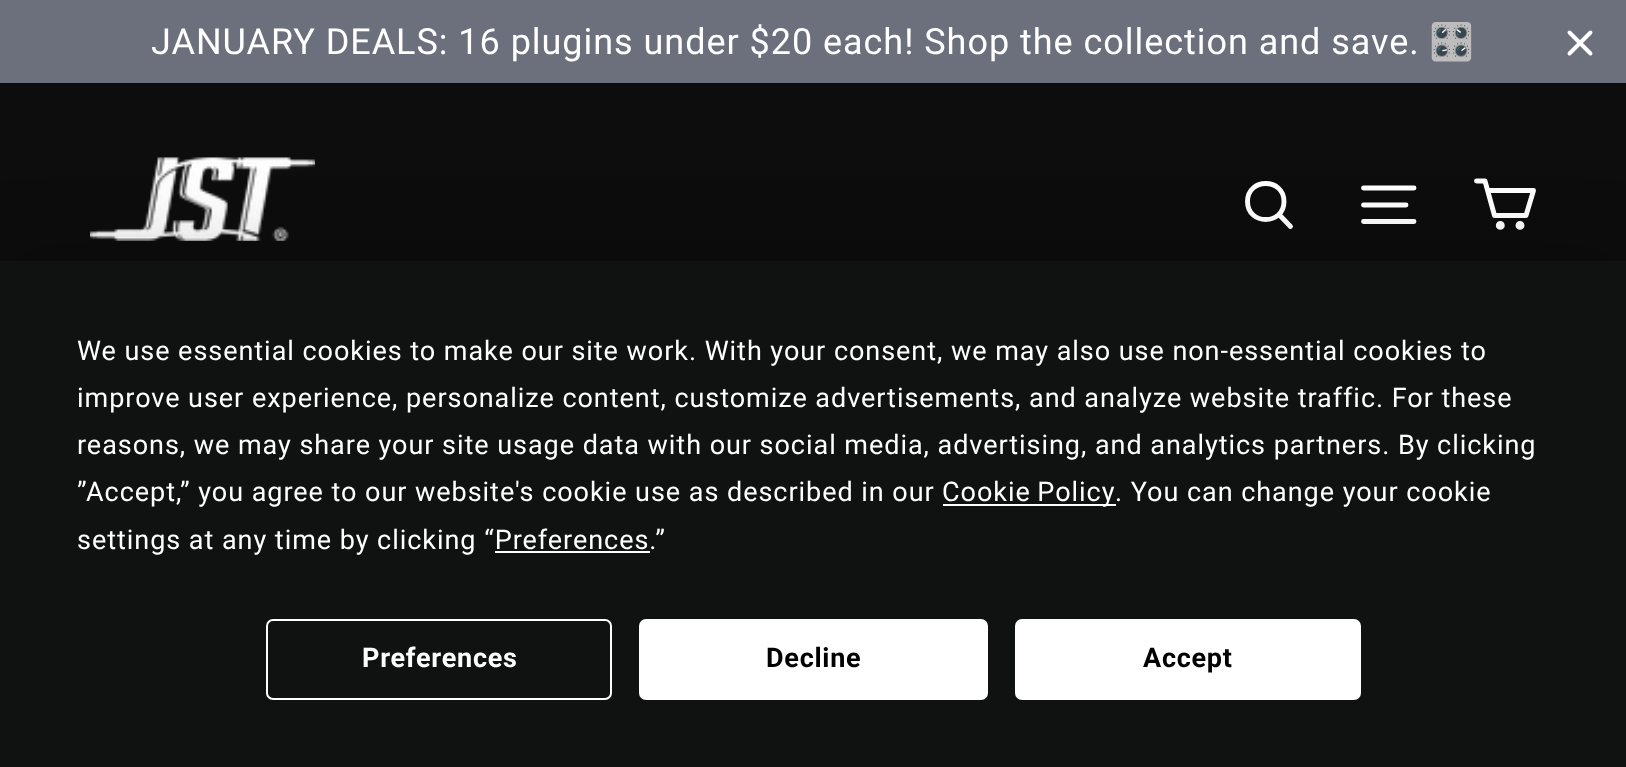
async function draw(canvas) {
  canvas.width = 1626
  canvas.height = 767
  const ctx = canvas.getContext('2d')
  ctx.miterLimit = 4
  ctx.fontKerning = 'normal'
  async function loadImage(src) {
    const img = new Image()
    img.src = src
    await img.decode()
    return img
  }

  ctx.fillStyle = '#0d0d0d'
  ctx.fillRect(0, 0, 1626, 767)
  ctx.fillStyle = '#6c707d'
  ctx.fillRect(0, 0, 1626, 83)
  ctx.letterSpacing = '0.96px'
  ctx.font = '36px Roboto'
  ctx.fillStyle = '#fff'
  ctx.fillText('JANUARY DEALS: 16 plugins under $20 each! Shop the collection and save.', 151, 54)
  ctx.font = '36px Noto Color Emoji'
  ctx.fillText('🎛️', 1429, 54)
  ctx.beginPath()
  ctx.moveTo(1569.5, 32.5)
  ctx.lineTo(1590.5, 53.5)
  ctx.moveTo(1590.5, 32.5)
  ctx.lineTo(1569.5, 53.5)
  ctx.strokeStyle = '#fff'
  ctx.lineWidth = 3.9
  ctx.lineCap = 'round'
  ctx.lineJoin = 'round'
  ctx.stroke()
  ctx.drawImage(await loadImage('image0.png'), 90, 157, 225, 84)
  ctx.beginPath()
  ctx.moveTo(1284, 201.5)
  ctx.bezierCurveTo(1284, 225.5, 1247.5, 225.5, 1247.5, 201.5)
  ctx.bezierCurveTo(1247.5, 177.5, 1284, 177.5, 1284, 201.5)
  ctx.closePath()
  ctx.moveTo(1290.5, 226.5)
  ctx.lineTo(1279, 214.5)
  ctx.lineWidth = 4.9
  ctx.stroke()
  ctx.beginPath()
  ctx.moveTo(1363.5, 188)
  ctx.lineTo(1414, 188)
  ctx.moveTo(1363.5, 205)
  ctx.lineTo(1406, 205)
  ctx.moveTo(1363.5, 221.5)
  ctx.lineTo(1414, 221.5)
  ctx.stroke()
  ctx.beginPath()
  ctx.moveTo(1487.5, 190.5)
  ctx.lineTo(1533.5, 190.5)
  ctx.lineTo(1526, 215.5)
  ctx.lineTo(1494.5, 215.5)
  ctx.lineTo(1485, 181)
  ctx.lineTo(1476.5, 181)
  ctx.stroke()
  ctx.beginPath()
  ctx.arc(1500.3, 225.4, 2, 0, 2 * Math.PI)
  ctx.fill()
  ctx.stroke()
  ctx.beginPath()
  ctx.arc(1520, 225.4, 2, 0, 2 * Math.PI)
  ctx.fill()
  ctx.stroke()
  ctx.fillStyle = '#00000040'
  ctx.filter = 'blur(39.5px)'
  ctx.beginPath()
  ctx.rect(0, 261, 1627, 506)
  ctx.fill()
  ctx.filter = 'none'
  ctx.fillStyle = '#101212'
  ctx.fillRect(0, 261, 1626, 506)
  ctx.font = '27px Roboto'
  ctx.fillStyle = '#fff'
  ctx.fillText('We use essential cookies to make our site work. With your consent, we may also use non-essential cookies to', 77, 360)
  ctx.fillText('improve user experience, personalize content, customize advertisements, and analyze website traffic. For these', 77, 407)
  ctx.fillText('reasons, we may share your site usage data with our social media, advertising, and analytics partners. By clicking', 77, 454)
  ctx.fillText('”Accept,” you agree to our website\'s cookie use as described in our', 77, 501)
  ctx.fillRect(943, 504, 173, 2)
  ctx.wordSpacing = '-1px'
  ctx.fillText('Cookie Policy', 942, 501)
  ctx.wordSpacing = '0px'
  ctx.fillText('. You can change your cookie', 1115, 501)
  ctx.fillText('settings at any time by clicking “Preferences.”', 77, 549)
  ctx.fillRect(495, 551, 155, 2)
  ctx.beginPath()
  ctx.roundRect(267, 620, 344, 79, 6)
  ctx.lineWidth = 2
  ctx.lineJoin = 'miter'
  ctx.stroke()
  ctx.letterSpacing = '0.75px'
  ctx.font = 'bold 27px Roboto'
  ctx.fillText('Preferences', 362, 667)
  ctx.beginPath()
  ctx.roundRect(640, 620, 347, 79, 6)
  ctx.fill()
  ctx.stroke()
  ctx.fillStyle = '#000'
  ctx.fillText('Decline', 766, 667)
  ctx.fillStyle = '#fff'
  ctx.beginPath()
  ctx.roundRect(1016, 620, 344, 79, 6)
  ctx.fill()
  ctx.stroke()
  ctx.fillStyle = '#000'
  ctx.fillText('Accept', 1143, 667)
}

draw(document.querySelector('canvas'))
